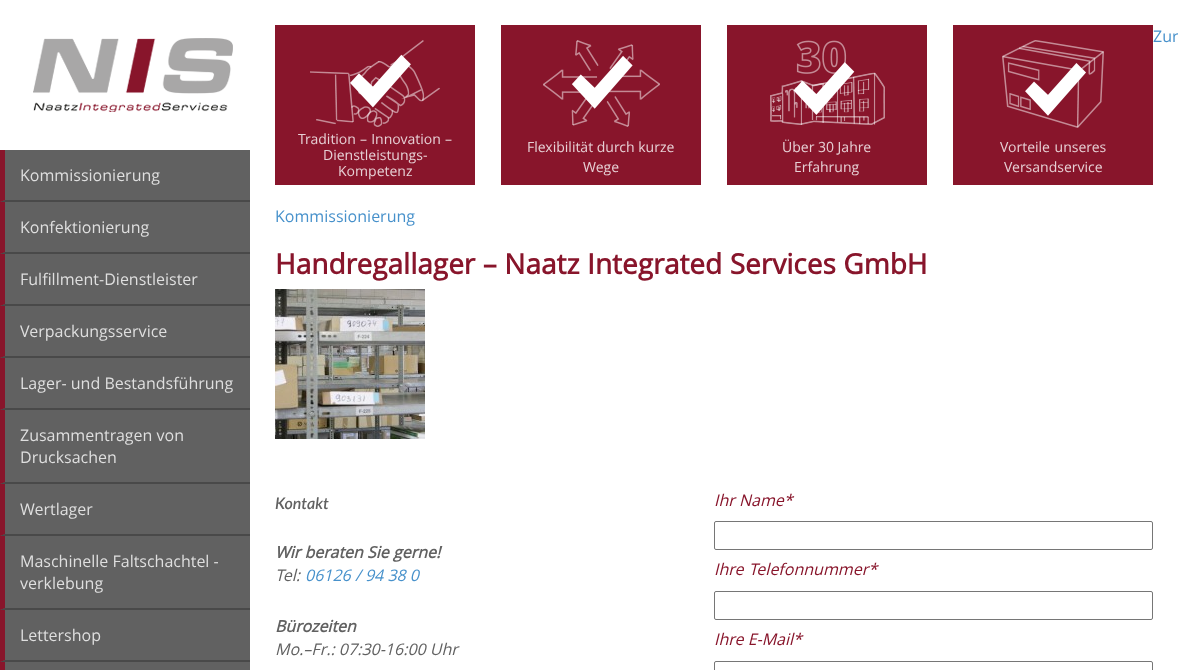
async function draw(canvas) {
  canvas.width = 1178
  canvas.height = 670
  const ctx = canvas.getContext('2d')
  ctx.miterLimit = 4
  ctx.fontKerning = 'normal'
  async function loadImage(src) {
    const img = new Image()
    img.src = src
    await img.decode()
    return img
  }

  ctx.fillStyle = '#fff'
  ctx.fillRect(0, 0, 1178, 670)
  ctx.drawImage(await loadImage('image0.png'), 33, 38, 200, 74)
  ctx.fillStyle = '#616161'
  ctx.fillRect(0, 150, 250, 520)
  ctx.fillStyle = '#494949'
  ctx.beginPath()
  ctx.moveTo(267, 202)
  ctx.lineTo(0, 202)
  ctx.lineTo(5, 200)
  ctx.lineTo(267, 200)
  ctx.closePath()
  ctx.fill()
  ctx.fillStyle = '#88152b'
  ctx.beginPath()
  ctx.moveTo(0, 202)
  ctx.lineTo(0, 150)
  ctx.lineTo(5, 150)
  ctx.lineTo(5, 200)
  ctx.closePath()
  ctx.fill()
  ctx.font = '16px Open Sans'
  ctx.fillStyle = '#dfdfdf'
  ctx.fillText('Kommissionierung', 20, 181)
  ctx.fillStyle = '#494949'
  ctx.beginPath()
  ctx.moveTo(267, 254)
  ctx.lineTo(0, 254)
  ctx.lineTo(5, 252)
  ctx.lineTo(267, 252)
  ctx.closePath()
  ctx.fill()
  ctx.fillStyle = '#88152b'
  ctx.beginPath()
  ctx.moveTo(0, 254)
  ctx.lineTo(0, 202)
  ctx.lineTo(5, 202)
  ctx.lineTo(5, 252)
  ctx.closePath()
  ctx.fill()
  ctx.fillStyle = '#dfdfdf'
  ctx.fillText('Konfektionierung', 20, 233)
  ctx.fillStyle = '#494949'
  ctx.beginPath()
  ctx.moveTo(267, 306)
  ctx.lineTo(0, 306)
  ctx.lineTo(5, 304)
  ctx.lineTo(267, 304)
  ctx.closePath()
  ctx.fill()
  ctx.fillStyle = '#88152b'
  ctx.beginPath()
  ctx.moveTo(0, 306)
  ctx.lineTo(0, 254)
  ctx.lineTo(5, 254)
  ctx.lineTo(5, 304)
  ctx.closePath()
  ctx.fill()
  ctx.fillStyle = '#dfdfdf'
  ctx.fillText('Fulfillment-Dienstleister', 20, 285)
  ctx.fillStyle = '#494949'
  ctx.beginPath()
  ctx.moveTo(267, 358)
  ctx.lineTo(0, 358)
  ctx.lineTo(5, 356)
  ctx.lineTo(267, 356)
  ctx.closePath()
  ctx.fill()
  ctx.fillStyle = '#88152b'
  ctx.beginPath()
  ctx.moveTo(0, 358)
  ctx.lineTo(0, 306)
  ctx.lineTo(5, 306)
  ctx.lineTo(5, 356)
  ctx.closePath()
  ctx.fill()
  ctx.fillStyle = '#dfdfdf'
  ctx.fillText('Verpackungsservice', 20, 337)
  ctx.fillStyle = '#494949'
  ctx.beginPath()
  ctx.moveTo(267, 410)
  ctx.lineTo(0, 410)
  ctx.lineTo(5, 408)
  ctx.lineTo(267, 408)
  ctx.closePath()
  ctx.fill()
  ctx.fillStyle = '#88152b'
  ctx.beginPath()
  ctx.moveTo(0, 410)
  ctx.lineTo(0, 358)
  ctx.lineTo(5, 358)
  ctx.lineTo(5, 408)
  ctx.closePath()
  ctx.fill()
  ctx.fillStyle = '#dfdfdf'
  ctx.fillText('Lager- und Bestandsführung', 20, 389)
  ctx.fillStyle = '#494949'
  ctx.beginPath()
  ctx.moveTo(267, 484)
  ctx.lineTo(0, 484)
  ctx.lineTo(5, 482)
  ctx.lineTo(267, 482)
  ctx.closePath()
  ctx.fill()
  ctx.fillStyle = '#88152b'
  ctx.beginPath()
  ctx.moveTo(0, 484)
  ctx.lineTo(0, 410)
  ctx.lineTo(5, 410)
  ctx.lineTo(5, 482)
  ctx.closePath()
  ctx.fill()
  ctx.fillStyle = '#dfdfdf'
  ctx.fillText('Zusammentragen von', 20, 441)
  ctx.fillText('Drucksachen', 20, 463)
  ctx.fillStyle = '#494949'
  ctx.beginPath()
  ctx.moveTo(267, 536)
  ctx.lineTo(0, 536)
  ctx.lineTo(5, 534)
  ctx.lineTo(267, 534)
  ctx.closePath()
  ctx.fill()
  ctx.fillStyle = '#88152b'
  ctx.beginPath()
  ctx.moveTo(0, 536)
  ctx.lineTo(0, 484)
  ctx.lineTo(5, 484)
  ctx.lineTo(5, 534)
  ctx.closePath()
  ctx.fill()
  ctx.fillStyle = '#dfdfdf'
  ctx.fillText('Wertlager', 20, 515)
  ctx.fillStyle = '#494949'
  ctx.beginPath()
  ctx.moveTo(267, 610)
  ctx.lineTo(0, 610)
  ctx.lineTo(5, 608)
  ctx.lineTo(267, 608)
  ctx.closePath()
  ctx.fill()
  ctx.fillStyle = '#88152b'
  ctx.beginPath()
  ctx.moveTo(0, 610)
  ctx.lineTo(0, 536)
  ctx.lineTo(5, 536)
  ctx.lineTo(5, 608)
  ctx.closePath()
  ctx.fill()
  ctx.fillStyle = '#dfdfdf'
  ctx.fillText('Maschinelle Faltschachtel -', 20, 567)
  ctx.fillText('verklebung', 20, 589)
  ctx.fillStyle = '#494949'
  ctx.beginPath()
  ctx.moveTo(267, 662)
  ctx.lineTo(0, 662)
  ctx.lineTo(5, 660)
  ctx.lineTo(267, 660)
  ctx.closePath()
  ctx.fill()
  ctx.fillStyle = '#88152b'
  ctx.beginPath()
  ctx.moveTo(0, 662)
  ctx.lineTo(0, 610)
  ctx.lineTo(5, 610)
  ctx.lineTo(5, 660)
  ctx.closePath()
  ctx.fill()
  ctx.fillStyle = '#dfdfdf'
  ctx.fillText('Lettershop', 20, 641)
  ctx.fillStyle = '#88152b'
  ctx.beginPath()
  ctx.moveTo(0, 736)
  ctx.lineTo(0, 662)
  ctx.lineTo(5, 662)
  ctx.lineTo(5, 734)
  ctx.closePath()
  ctx.fill()
  ctx.fillStyle = '#fff'
  ctx.fillRect(250, 200, 17, 462)
  ctx.fillStyle = '#4791cb'
  ctx.fillText('Zur', 1153, 42)
  ctx.fillText('Kommissionierung', 275, 222)
  ctx.wordSpacing = '0.25px'
  ctx.font = 'bold 28px Open Sans'
  ctx.fillStyle = '#88152b'
  ctx.fillText('Handregallager – Naatz Integrated Services GmbH', 275, 274)
  ctx.drawImage(await loadImage('image1.png'), 275, 289, 150, 150)
  ctx.fillRect(275, 25, 200, 160)
  ctx.drawImage(await loadImage('image2.png'), 310, 40, 130, 87)
  ctx.wordSpacing = '0.5px'
  ctx.font = '14px Open Sans'
  ctx.fillStyle = '#e7d0d5'
  ctx.fillText('Tradition – Innovation –', 298, 144)
  ctx.wordSpacing = '0px'
  ctx.fillText('Dienstleistungs-', 323, 160)
  ctx.fillText('Kompetenz', 338, 176)
  ctx.fillStyle = '#88152b'
  ctx.fillRect(501, 25, 200, 160)
  ctx.drawImage(await loadImage('image3.png'), 543, 40, 117, 87)
  ctx.fillStyle = '#e7d0d5'
  ctx.fillText('Flexibilität durch kurze', 527, 152)
  ctx.fillText('Wege', 583, 172)
  ctx.fillStyle = '#88152b'
  ctx.fillRect(727, 25, 200, 160)
  ctx.drawImage(await loadImage('image4.png'), 770, 40, 115, 85)
  ctx.fillStyle = '#e7d0d5'
  ctx.fillText('Über 30 Jahre', 782, 152)
  ctx.fillText('Erfahrung', 794, 172)
  ctx.fillStyle = '#88152b'
  ctx.fillRect(953, 25, 200, 160)
  ctx.drawImage(await loadImage('image5.png'), 1002, 40, 102, 88)
  ctx.wordSpacing = '1px'
  ctx.fillStyle = '#e7d0d5'
  ctx.fillText('Vorteile unseres', 1000, 152)
  ctx.wordSpacing = '0px'
  ctx.fillText('Versandservice', 1004, 172)
  ctx.font = 'italic 600 16px Lato'
  ctx.fillStyle = '#616161'
  ctx.fillText('Kontakt', 275, 509)
  ctx.font = 'italic bold 16px Open Sans'
  ctx.fillText('Wir beraten Sie gerne!', 275, 558)
  ctx.font = 'italic 16px Open Sans'
  ctx.fillText('Tel:', 275, 581)
  ctx.fillStyle = '#4791cb'
  ctx.fillText('06126 / 94 38 0', 305, 581)
  ctx.font = 'italic bold 16px Open Sans'
  ctx.fillStyle = '#616161'
  ctx.fillText('Bürozeiten', 275, 632)
  ctx.font = 'italic 16px Open Sans'
  ctx.fillText('Mo.–Fr.: 07:30-16:00 Uhr', 275, 655)
  ctx.fillStyle = '#88152b'
  ctx.fillText('Ihr Name*', 714, 506)
  ctx.beginPath()
  ctx.roundRect(714.5, 521.5, 438, 28, 1.5)
  ctx.strokeStyle = '#767676'
  ctx.stroke()
  ctx.wordSpacing = '1px'
  ctx.fillText('Ihre Telefonnummer*', 714, 575)
  ctx.beginPath()
  ctx.roundRect(714.5, 591.5, 438, 28, 1.5)
  ctx.stroke()
  ctx.wordSpacing = '0px'
  ctx.fillText('Ihre E-Mail*', 714, 645)
  ctx.beginPath()
  ctx.roundRect(714.5, 661.5, 438, 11, 1.5)
  ctx.stroke()
}

draw(document.querySelector('canvas'))
